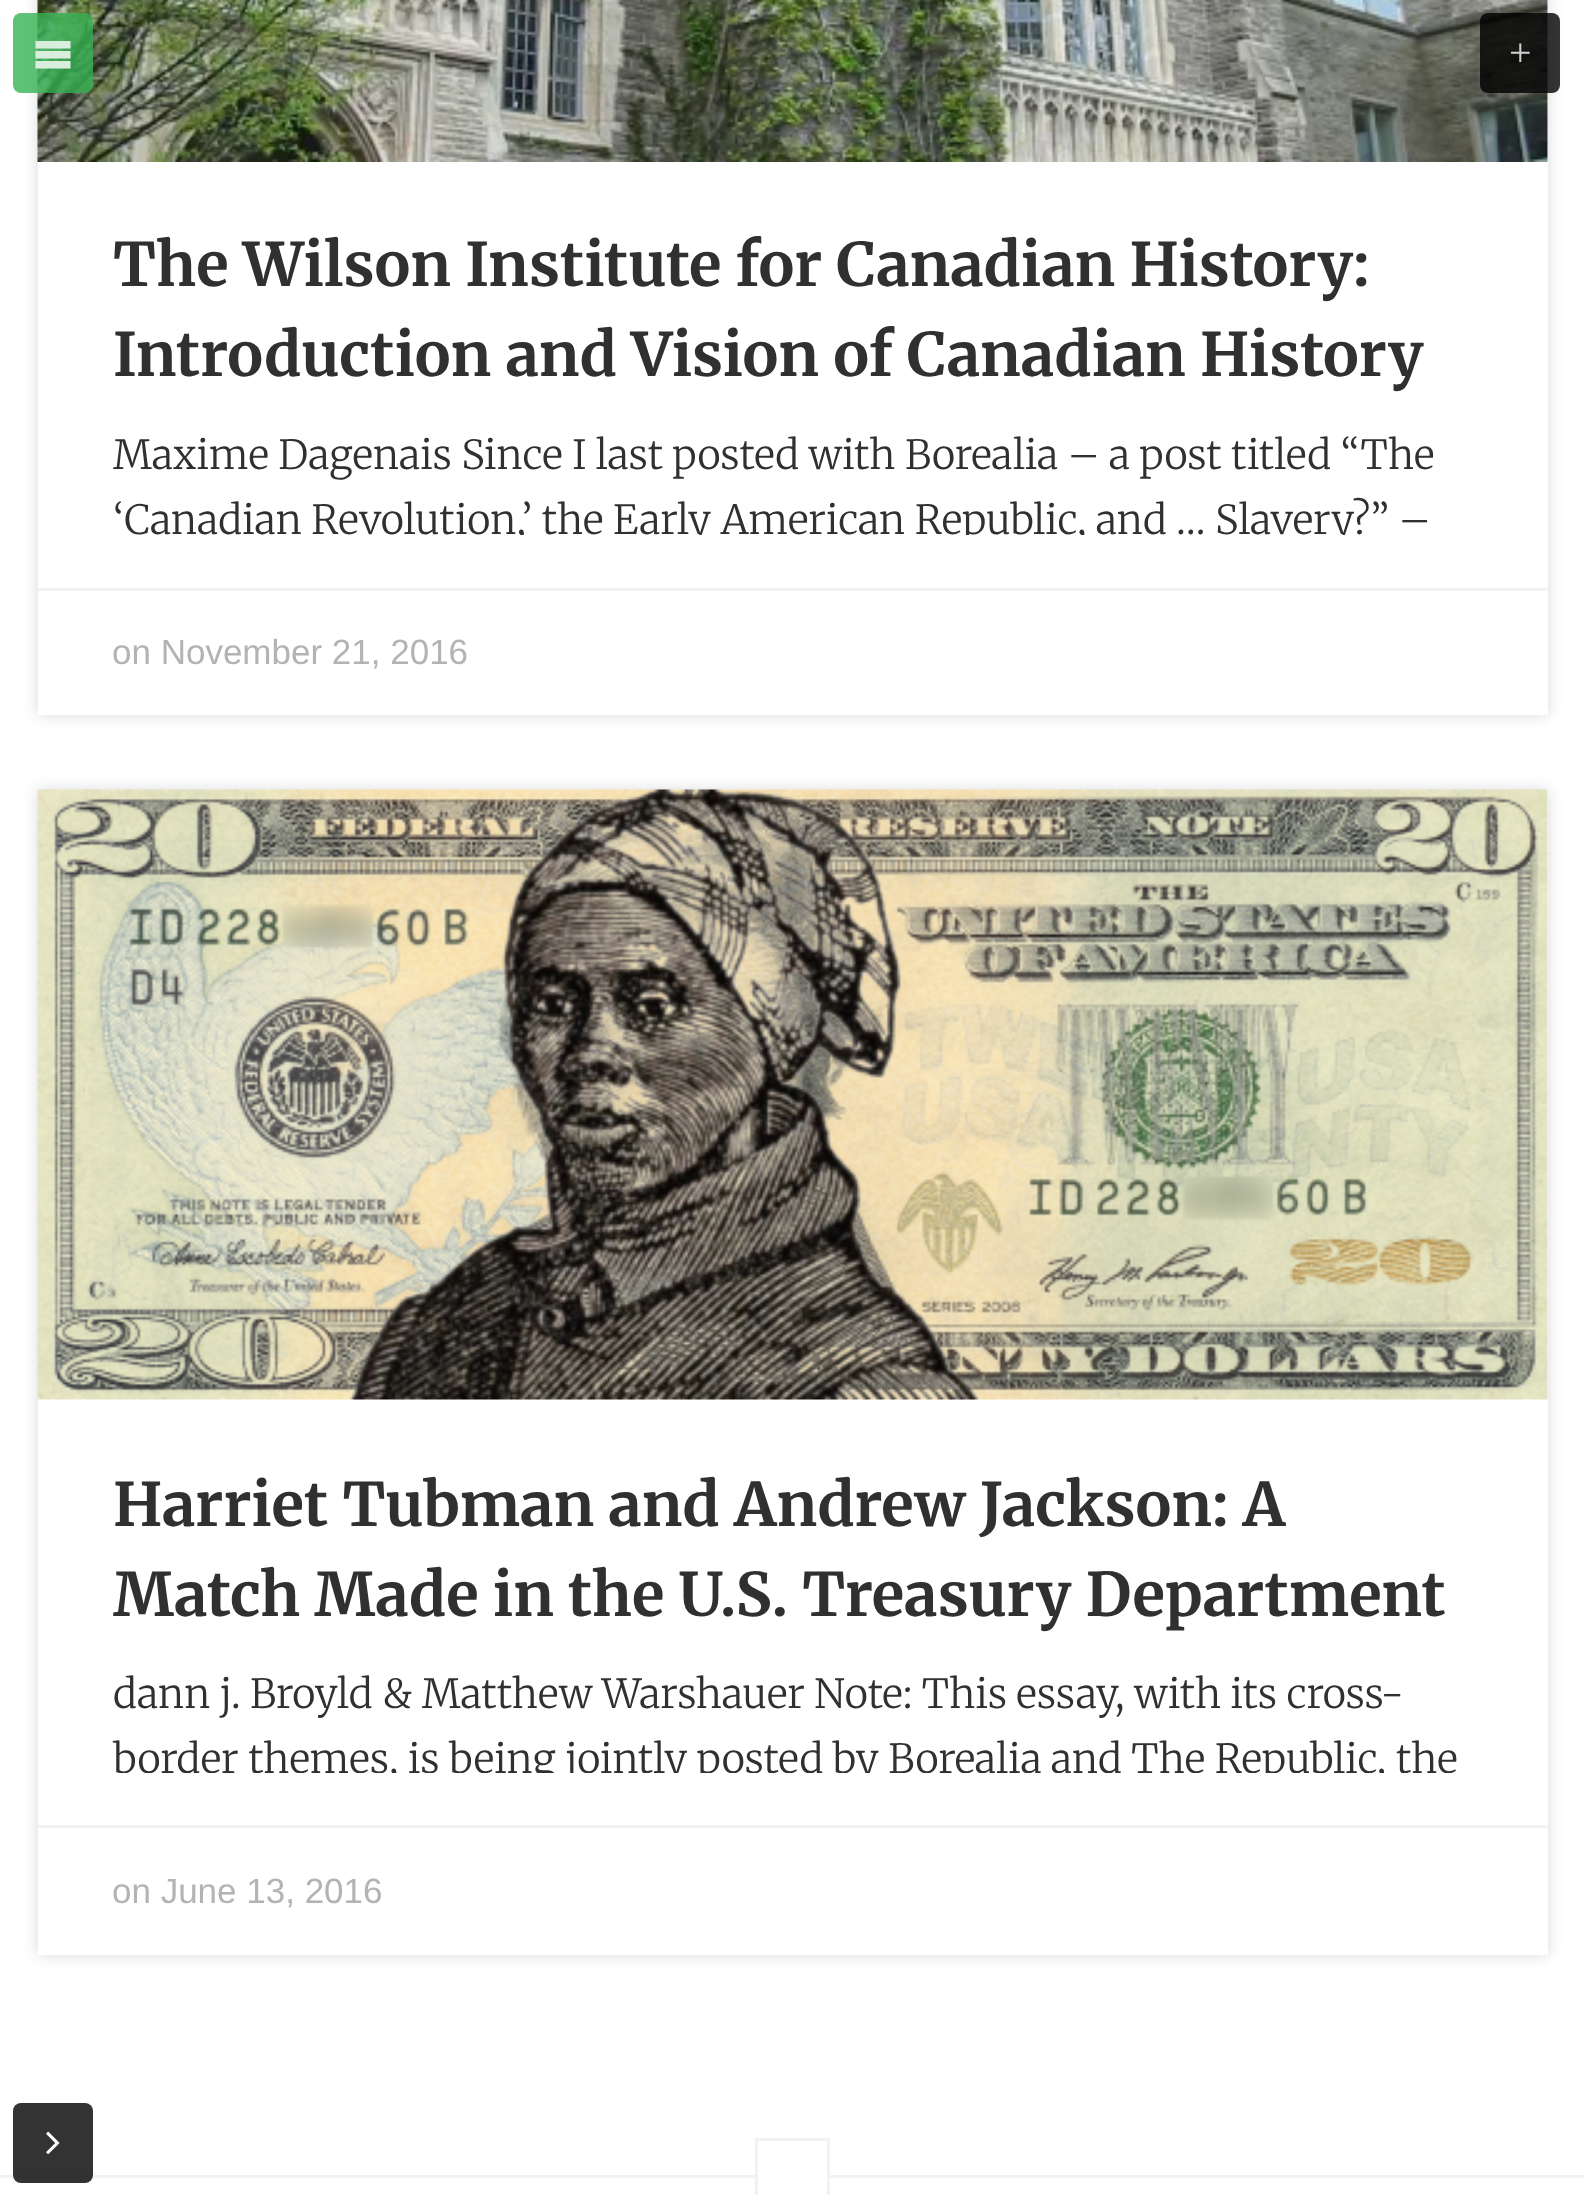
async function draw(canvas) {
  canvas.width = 1584
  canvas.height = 2195
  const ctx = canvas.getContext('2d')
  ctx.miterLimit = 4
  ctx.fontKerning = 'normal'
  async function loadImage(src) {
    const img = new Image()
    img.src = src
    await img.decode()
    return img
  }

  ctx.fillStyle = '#fff'
  ctx.fillRect(0, 0, 1584, 2195)
  ctx.fillStyle = '#00000026'
  ctx.filter = 'blur(7.5px)'
  ctx.beginPath()
  ctx.rect(38, -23, 1510, 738)
  ctx.fill()
  ctx.filter = 'none'
  ctx.fillStyle = '#fff'
  ctx.fillRect(38, 0, 1510, 715)
  ctx.drawImage(await loadImage('image0.png'), 37, 0, 1511, 162)
  ctx.fillStyle = '#37b253cc'
  ctx.beginPath()
  ctx.roundRect(13, 13, 80, 80, 8)
  ctx.fill()
  ctx.font = '40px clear'
  ctx.fillStyle = '#daeede'
  ctx.fillText('m', 33, 71)
  ctx.fillStyle = '#000000cc'
  ctx.beginPath()
  ctx.roundRect(1480, 13, 80, 80, 8)
  ctx.fill()
  ctx.font = '40px Liberation Serif'
  ctx.fillStyle = '#d0d0d0'
  ctx.fillText('+', 1509, 66)
  ctx.fillStyle = '#f2f2f2'
  ctx.fillRect(0, 2175, 1584, 3)
  ctx.fillStyle = '#000000cc'
  ctx.beginPath()
  ctx.roundRect(13, 2103, 80, 80, 8)
  ctx.fill()
  ctx.font = '40px clear'
  ctx.fillStyle = '#fff'
  ctx.fillText('n', 46, 2159)
  ctx.font = 'bold 60px Merriweather'
  ctx.fillStyle = '#303030'
  ctx.fillText('The Wilson Institute for Canadian History:', 113, 286)
  ctx.fillText('Introduction and Vision of Canadian History', 113, 376)
  ctx.font = '300 40px Merriweather'
  ctx.fillText('Maxime Dagenais Since I last posted with Borealia – a post titled “The', 113, 469)
  ctx.save()
  ctx.beginPath()
  ctx.rect(38, 163, 1510, 372)
  ctx.clip()
  ctx.fillText('‘Canadian Revolution,’ the Early American Republic, and … Slavery?” –', 113, 534)
  ctx.restore()
  ctx.fillStyle = '#f2f2f2'
  ctx.fillRect(38, 588, 1510, 3)
  ctx.font = '35px Liberation Sans'
  ctx.fillStyle = '#b3b3b1'
  ctx.fillText('on November 21, 2016', 112, 664)
  ctx.fillStyle = '#00000026'
  ctx.filter = 'blur(7.5px)'
  ctx.beginPath()
  ctx.rect(38, 790, 1510, 1165)
  ctx.fill()
  ctx.filter = 'none'
  ctx.fillStyle = '#fff'
  ctx.fillRect(38, 790, 1510, 1165)
  ctx.drawImage(await loadImage('image1.png'), 37, 789, 1511, 611)
  ctx.font = 'bold 60px Merriweather'
  ctx.fillStyle = '#303030'
  ctx.fillText('Harriet Tubman and Andrew Jackson: A', 113, 1526)
  ctx.save()
  ctx.beginPath()
  ctx.rect(113, 1460, 1360, 180)
  ctx.clip()
  ctx.fillText('Match Made in the U.S. Treasury Department', 113, 1616)
  ctx.restore()
  ctx.font = '300 40px Merriweather'
  ctx.fillText('dann j. Broyld & Matthew Warshauer Note: This essay, with its cross-', 113, 1708)
  ctx.save()
  ctx.beginPath()
  ctx.rect(38, 1400, 1510, 373)
  ctx.clip()
  ctx.fillText('border themes, is being jointly posted by Borealia and The Republic, the', 113, 1773)
  ctx.restore()
  ctx.fillStyle = '#f2f2f2'
  ctx.fillRect(38, 1825, 1510, 3)
  ctx.font = '35px Liberation Sans'
  ctx.fillStyle = '#b3b3b1'
  ctx.fillText('on June 13, 2016', 112, 1903)
  ctx.fillStyle = '#fff'
  ctx.fillRect(758, 2175, 69, 3)
  ctx.strokeStyle = '#f2f2f2'
  ctx.lineWidth = 3
  ctx.strokeRect(756.5, 2139.5, 72, 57)
}

draw(document.querySelector('canvas'))
